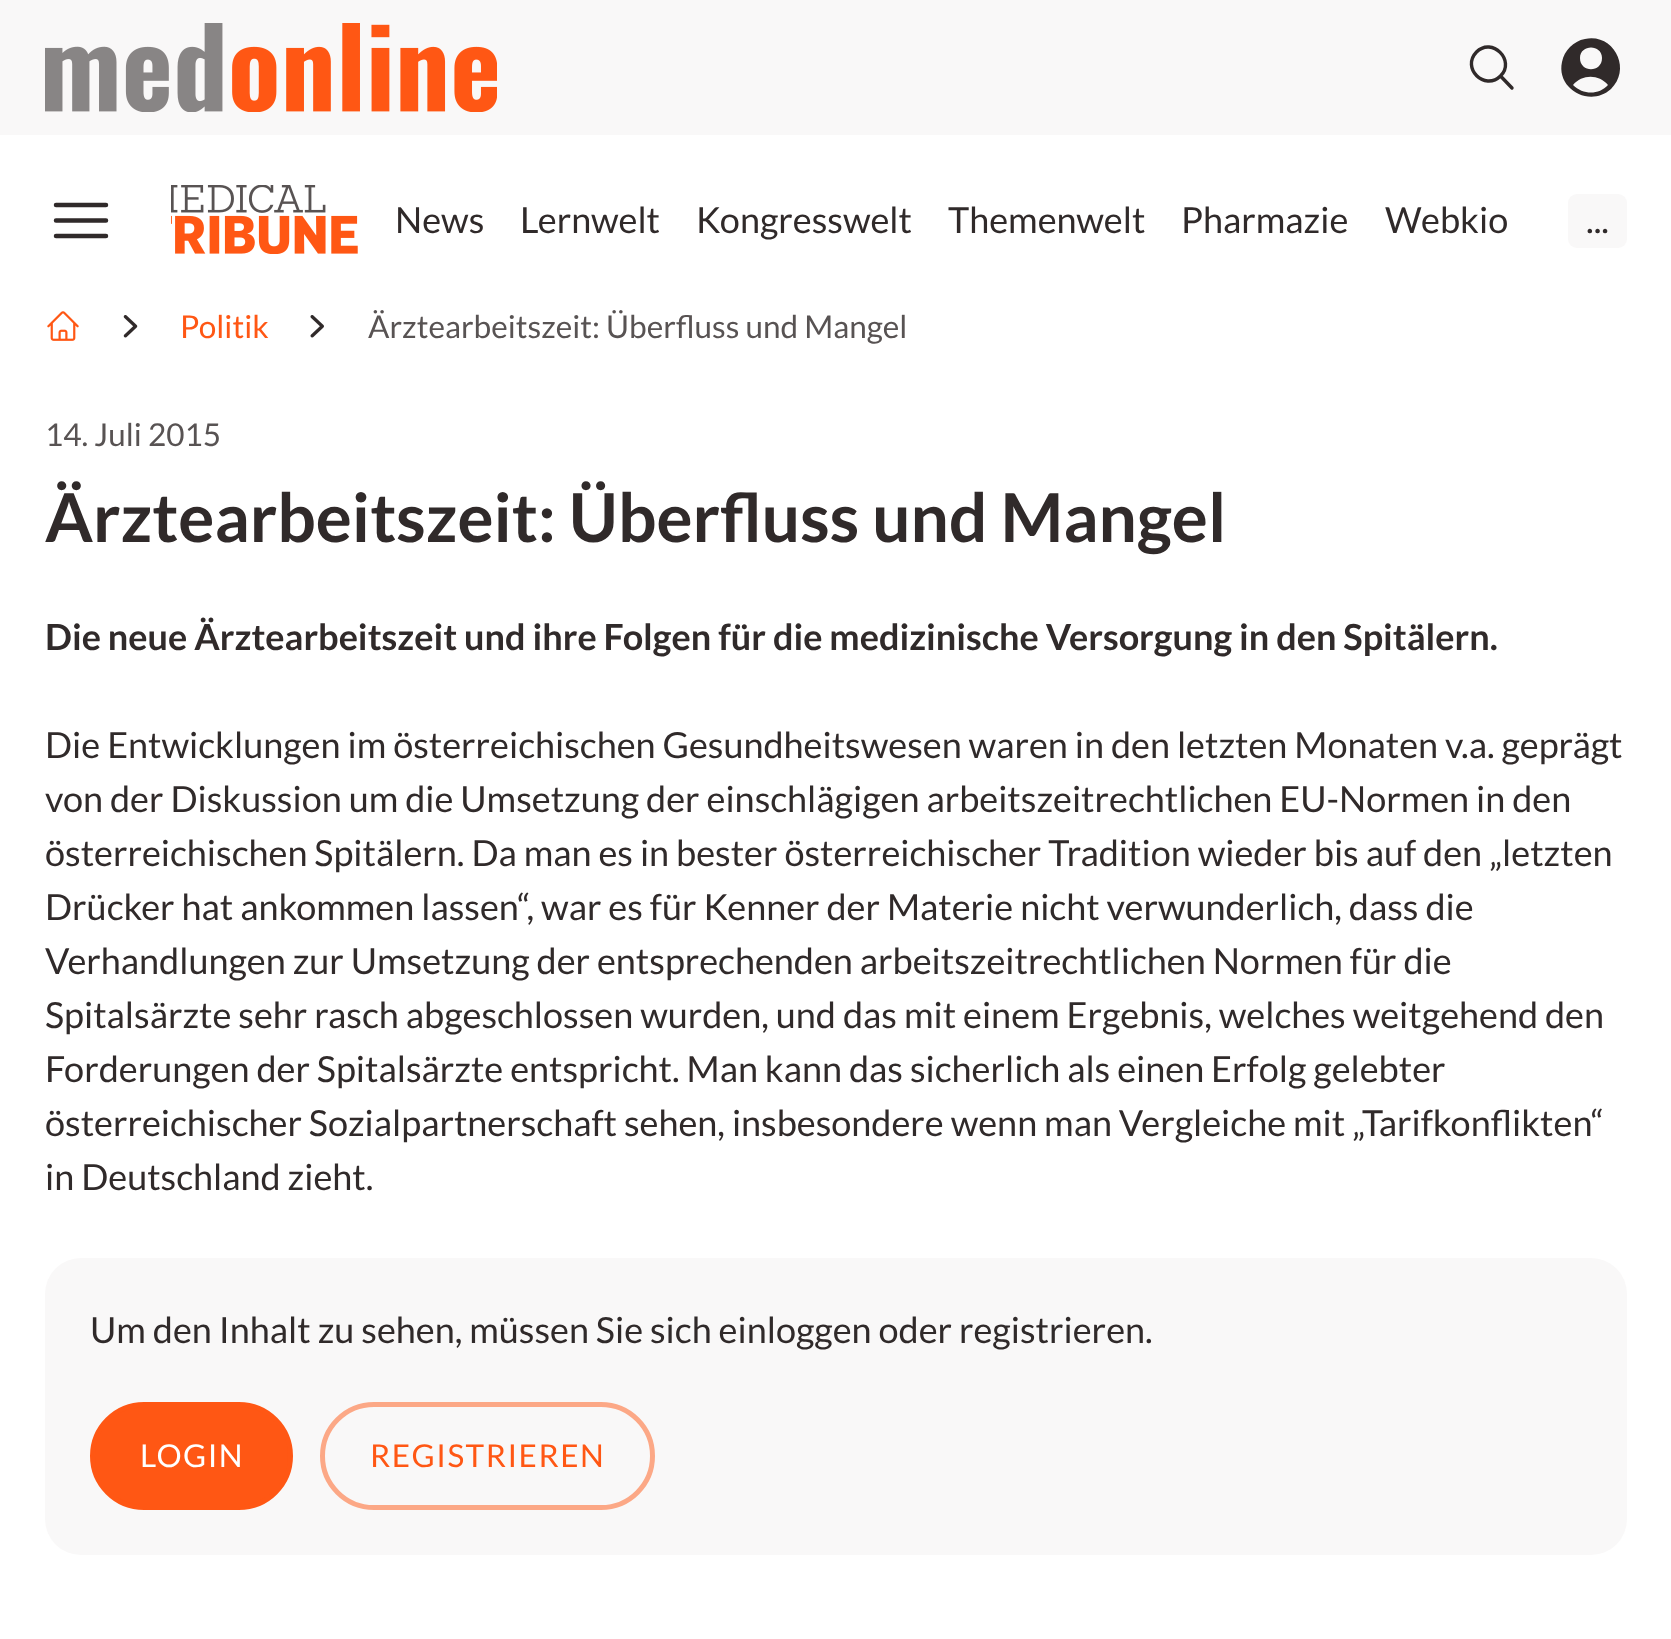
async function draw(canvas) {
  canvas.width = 1671
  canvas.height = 1639
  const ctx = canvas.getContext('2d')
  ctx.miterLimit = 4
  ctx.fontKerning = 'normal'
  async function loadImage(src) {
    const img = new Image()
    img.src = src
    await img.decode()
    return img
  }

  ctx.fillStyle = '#fff'
  ctx.fillRect(0, 0, 1671, 1639)
  ctx.fillStyle = '#f9f8f8'
  ctx.fillRect(0, 0, 1671, 135)
  ctx.drawImage(await loadImage('image0.png'), 45, 23, 452, 89)
  ctx.beginPath()
  ctx.moveTo(1512, 88)
  ctx.lineTo(1500.5, 76)
  ctx.moveTo(1500.5, 76)
  ctx.bezierCurveTo(1516, 60.5, 1492, 36.5, 1476.5, 52)
  ctx.bezierCurveTo(1461, 68, 1484.5, 91.5, 1500.5, 76)
  ctx.closePath()
  ctx.strokeStyle = '#302a2a'
  ctx.lineWidth = 3.4
  ctx.lineCap = 'round'
  ctx.lineJoin = 'round'
  ctx.stroke()
  ctx.fillStyle = '#302a2a'
  ctx.beginPath()
  ctx.moveTo(1611, 89)
  ctx.bezierCurveTo(1632, 69, 1614, 33, 1585, 39)
  ctx.bezierCurveTo(1579, 40, 1574, 43, 1570, 47)
  ctx.bezierCurveTo(1566, 51, 1563, 56, 1562, 62)
  ctx.bezierCurveTo(1556, 89, 1590, 108, 1611, 89)
  ctx.closePath()
  ctx.moveTo(1573, 85)
  ctx.bezierCurveTo(1582, 74, 1599, 74, 1608, 85)
  ctx.bezierCurveTo(1599, 95, 1583, 95, 1573, 85)
  ctx.closePath()
  ctx.moveTo(1602, 58)
  ctx.bezierCurveTo(1602, 73, 1580, 73, 1580, 58)
  ctx.bezierCurveTo(1580, 44, 1602, 44, 1602, 58)
  ctx.closePath()
  ctx.fill('evenodd')
  ctx.beginPath()
  ctx.moveTo(56, 205)
  ctx.lineTo(106, 205)
  ctx.moveTo(56, 220.5)
  ctx.lineTo(106, 220.5)
  ctx.moveTo(56, 236)
  ctx.lineTo(106, 236)
  ctx.lineWidth = 4.5
  ctx.stroke()
  ctx.drawImage(await loadImage('image1.png'), 171, 185, 187, 69)
  ctx.font = '36px Lato'
  ctx.fillText('News', 395, 233)
  ctx.fillText('Lernwelt', 520, 233)
  ctx.fillText('Kongresswelt', 696, 233)
  ctx.fillText('Themenwelt', 948, 233)
  ctx.fillText('Pharmazie', 1181, 233)
  ctx.fillText('Webkio', 1385, 233)
  ctx.fillStyle = '#f9f8f8'
  ctx.beginPath()
  ctx.roundRect(1568, 194, 59, 54, 9)
  ctx.fill()
  ctx.fillStyle = '#302a2a'
  ctx.fillText('...', 1586, 233)
  ctx.drawImage(await loadImage('image2.png'), 47, 311, 32, 30)
  ctx.drawImage(await loadImage('image3.png'), 123, 315, 15, 23)
  ctx.font = '31.5px Lato'
  ctx.fillStyle = '#ff5714'
  ctx.fillText('Politik', 180, 338)
  ctx.drawImage(await loadImage('image4.png'), 310, 315, 14, 23)
  ctx.fillStyle = '#585353'
  ctx.fillText('Ärztearbeitszeit: Überfluss und Mangel', 368, 338)
  ctx.fillText('14. Juli 2015', 45, 446)
  ctx.font = 'bold 67.5px Lato'
  ctx.fillStyle = '#302a2a'
  ctx.fillText('Ärztearbeitszeit: Überfluss und Mangel', 45, 542)
  ctx.font = 'bold 36px Lato'
  ctx.fillText('Die neue Ärztearbeitszeit und ihre Folgen für die medizinische Versorgung in den Spitälern.', 45, 650)
  ctx.font = '36px Lato'
  ctx.fillText('Die Entwicklungen im österreichischen Gesundheitswesen waren in den letzten Monaten v.a. geprägt', 45, 758)
  ctx.fillText('von der Diskussion um die Umsetzung der einschlägigen arbeitszeitrechtlichen EU-Normen in den', 45, 812)
  ctx.fillText('österreichischen Spitälern. Da man es in bester österreichischer Tradition wieder bis auf den „letzten', 45, 866)
  ctx.fillText('Drücker hat ankommen lassen“, war es für Kenner der Materie nicht verwunderlich, dass die', 45, 920)
  ctx.fillText('Verhandlungen zur Umsetzung der entsprechenden arbeitszeitrechtlichen Normen für die', 45, 974)
  ctx.fillText('Spitalsärzte sehr rasch abgeschlossen wurden, und das mit einem Ergebnis, welches weitgehend den', 45, 1028)
  ctx.fillText('Forderungen der Spitalsärzte entspricht. Man kann das sicherlich als einen Erfolg gelebter', 45, 1082)
  ctx.fillText('österreichischer Sozialpartnerschaft sehen, insbesondere wenn man Vergleiche mit „Tarifkonflikten“', 45, 1136)
  ctx.fillText('in Deutschland zieht.', 45, 1190)
  ctx.fillStyle = '#f9f8f8'
  ctx.beginPath()
  ctx.roundRect(45, 1258, 1582, 297, 36)
  ctx.fill()
  ctx.fillStyle = '#302a2a'
  ctx.fillText('Um den Inhalt zu sehen, müssen Sie sich einloggen oder registrieren.', 90, 1343)
  ctx.fillStyle = '#ff5714'
  ctx.beginPath()
  ctx.roundRect(92.5, 1404.5, 198, 103, 51.5)
  ctx.fill()
  ctx.strokeStyle = '#ff5714'
  ctx.lineWidth = 5
  ctx.lineJoin = 'miter'
  ctx.stroke()
  ctx.letterSpacing = '1.5px'
  ctx.font = '31.5px Lato'
  ctx.fillStyle = '#fff'
  ctx.fillText('LOGIN', 140, 1467)
  ctx.beginPath()
  ctx.roundRect(322.5, 1404.5, 330, 103, 51.5)
  ctx.strokeStyle = '#fca886'
  ctx.stroke()
  ctx.fillStyle = '#ff5714'
  ctx.fillText('REGISTRIEREN', 370, 1467)
}

draw(document.querySelector('canvas'))
